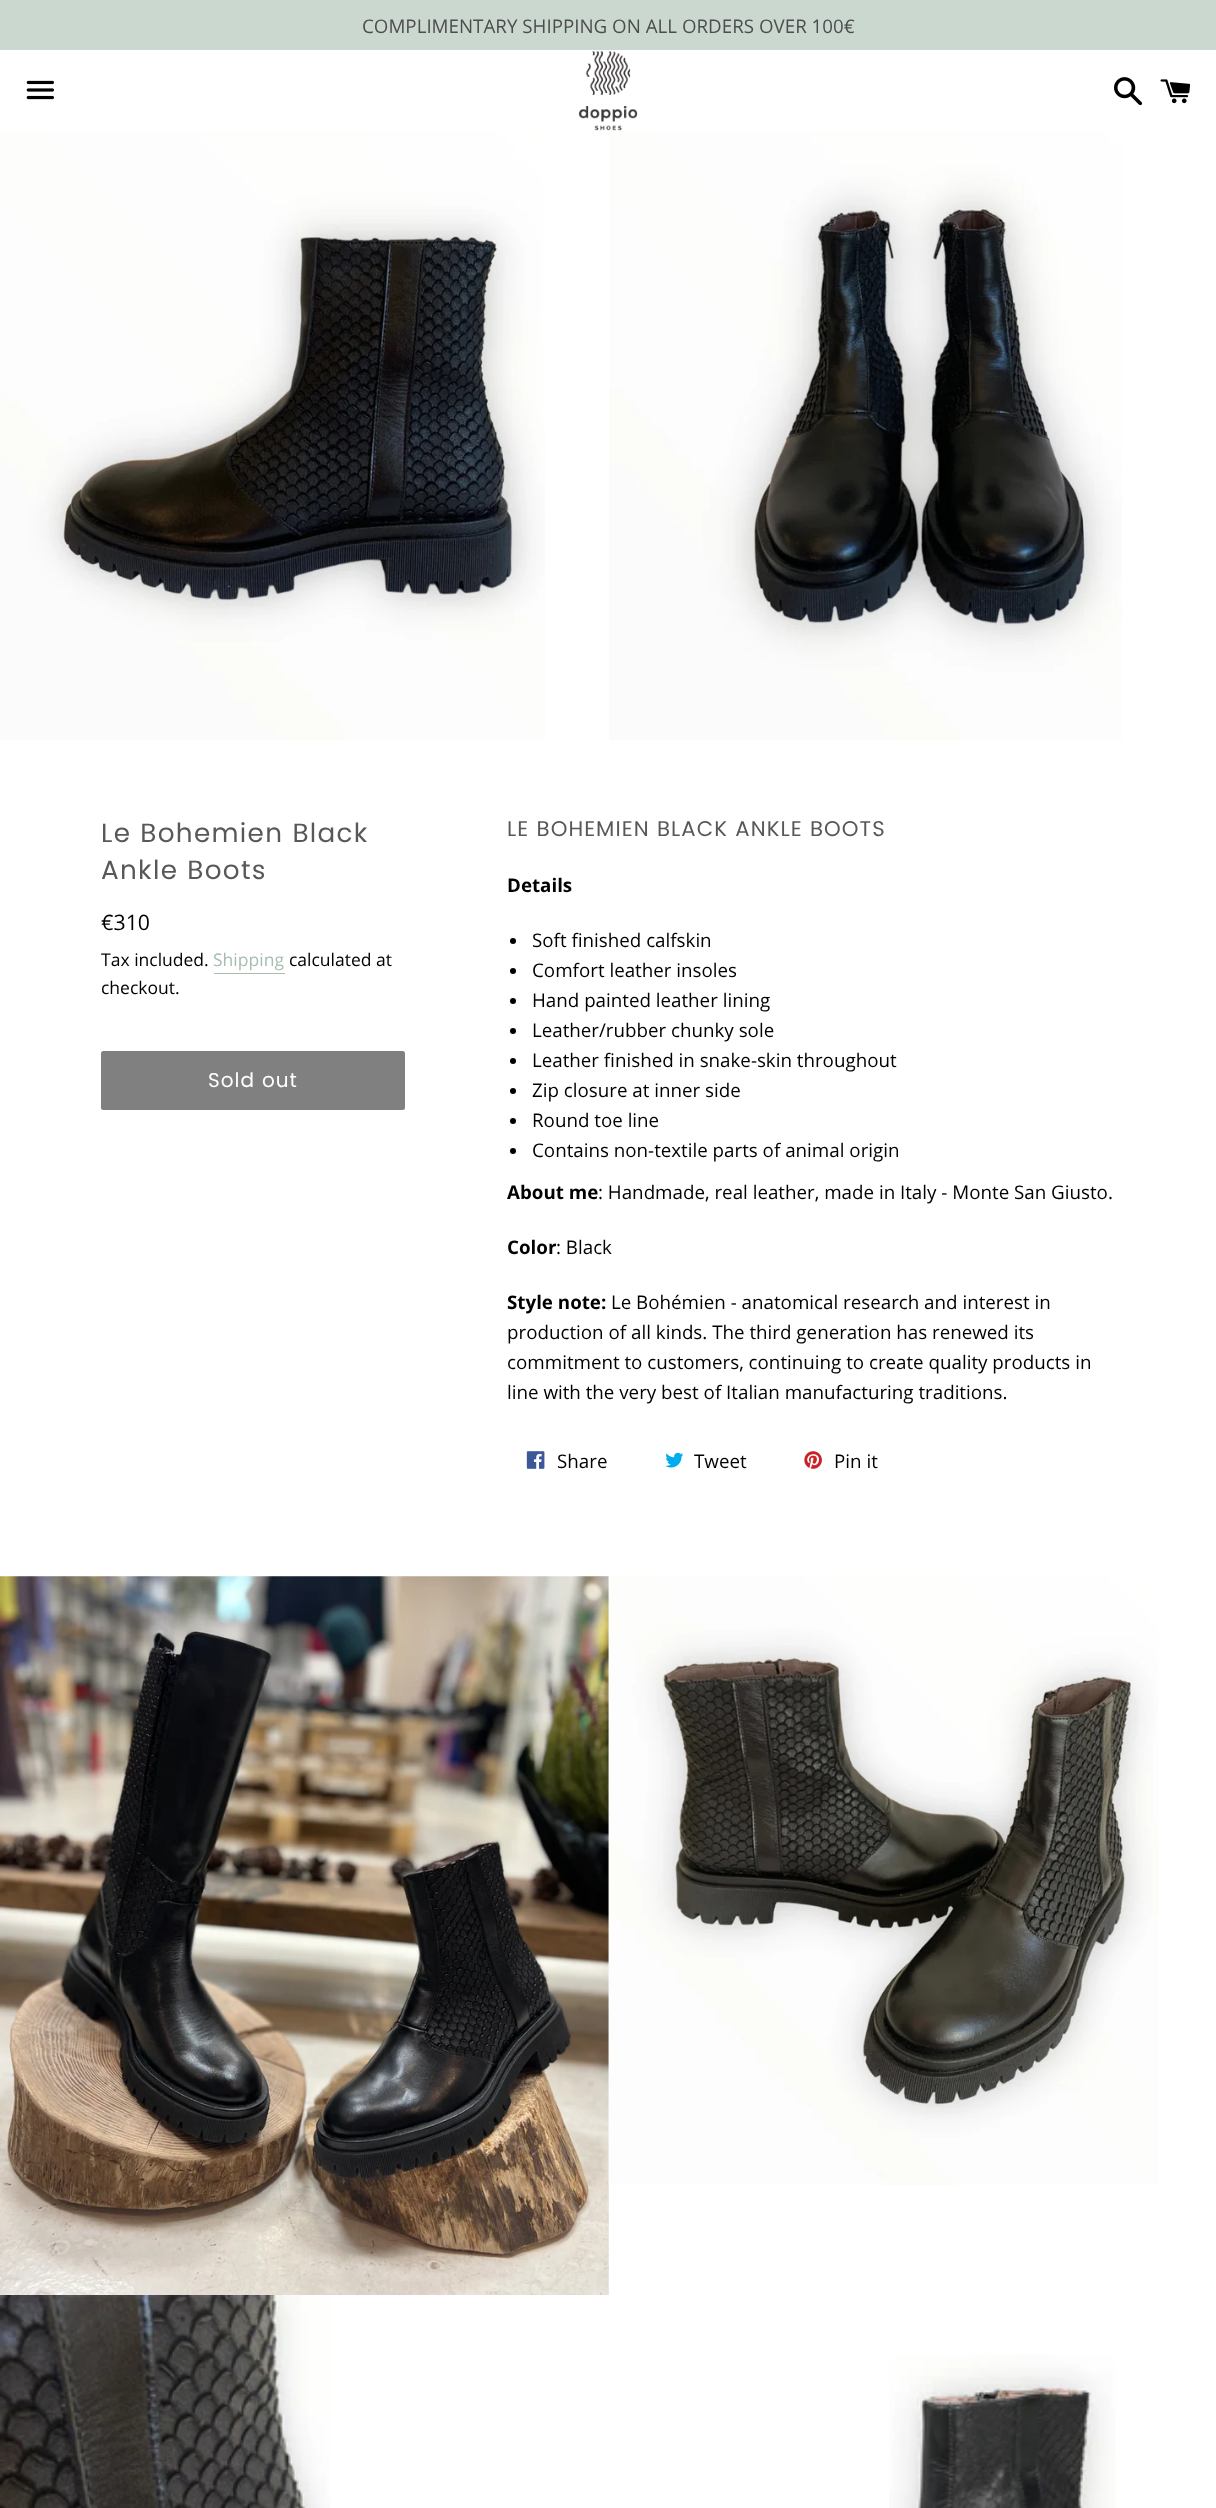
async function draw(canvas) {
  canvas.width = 1216
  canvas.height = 2508
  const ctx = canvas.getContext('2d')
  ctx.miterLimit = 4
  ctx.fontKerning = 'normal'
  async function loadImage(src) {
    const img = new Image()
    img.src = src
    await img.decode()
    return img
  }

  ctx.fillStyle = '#fff'
  ctx.fillRect(0, 0, 1216, 2508)
  ctx.fillStyle = '#cbd8d0'
  ctx.fillRect(0, 0, 1216, 50)
  ctx.font = '18.75px Open Sans'
  ctx.fillStyle = '#4d4d4d'
  ctx.fillText('COMPLIMENTARY SHIPPING ON ALL ORDERS OVER 100€', 362, 33)
  ctx.drawImage(await loadImage('image0.png'), 26, 80, 28, 20)
  ctx.drawImage(await loadImage('image1.png'), 578, 51, 60, 80)
  ctx.drawImage(await loadImage('image2.png'), 1114, 77, 29, 29)
  ctx.drawImage(await loadImage('image3.png'), 1160, 79, 31, 25)
  ctx.drawImage(await loadImage('image4.png'), 0, 131, 545, 609)
  ctx.drawImage(await loadImage('image5.png'), 609, 131, 513, 609)
  ctx.letterSpacing = '1.3px'
  ctx.font = '26.25px Poppins'
  ctx.fillStyle = '#585858'
  ctx.fillText('Le Bohemien Black', 101, 842)
  ctx.fillText('Ankle Boots', 101, 879)
  ctx.letterSpacing = '0px'
  ctx.font = '21.25px Open Sans'
  ctx.fillStyle = '#000'
  ctx.fillText('€310', 101, 930)
  ctx.font = '17.5px Open Sans'
  ctx.fillText('Tax included.', 101, 966)
  ctx.fillStyle = '#a7bdb0'
  ctx.fillText('Shipping', 213, 966)
  ctx.fillRect(214, 973, 71, 1)
  ctx.fillStyle = '#000'
  ctx.fillText('calculated at', 289, 966)
  ctx.fillText('checkout.', 101, 994)
  ctx.fillStyle = '#808080'
  ctx.beginPath()
  ctx.roundRect(102.5, 1052.5, 301, 56, 1)
  ctx.fill()
  ctx.strokeStyle = '#808080'
  ctx.lineWidth = 3
  ctx.stroke()
  ctx.letterSpacing = '1px'
  ctx.font = '20px Poppins'
  ctx.fillStyle = '#fff'
  ctx.fillText('Sold out', 208, 1087)
  ctx.letterSpacing = '1.05px'
  ctx.font = '21.25px Poppins'
  ctx.fillStyle = '#585858'
  ctx.fillText('LE BOHEMIEN BLACK ANKLE BOOTS', 507, 836)
  ctx.letterSpacing = '0px'
  ctx.font = 'bold 18.75px Open Sans'
  ctx.fillStyle = '#000'
  ctx.fillText('Details', 507, 892)
  ctx.beginPath()
  ctx.arc(513, 941, 3, 0, 2 * Math.PI)
  ctx.fill()
  ctx.font = '18.75px Open Sans'
  ctx.fillText('Soft finished calfskin', 532, 947)
  ctx.beginPath()
  ctx.arc(513, 971, 3, 0, 2 * Math.PI)
  ctx.fill()
  ctx.fillText('Comfort leather insoles', 532, 977)
  ctx.beginPath()
  ctx.arc(513, 1001, 3, 0, 2 * Math.PI)
  ctx.fill()
  ctx.fillText('Hand painted leather lining', 532, 1007)
  ctx.beginPath()
  ctx.arc(513, 1031, 3, 0, 2 * Math.PI)
  ctx.fill()
  ctx.fillText('Leather/rubber chunky sole', 532, 1037)
  ctx.beginPath()
  ctx.arc(513, 1061, 3, 0, 2 * Math.PI)
  ctx.fill()
  ctx.fillText('Leather finished in snake-skin throughout', 532, 1067)
  ctx.beginPath()
  ctx.arc(513, 1091, 3, 0, 2 * Math.PI)
  ctx.fill()
  ctx.fillText('Zip closure at inner side', 532, 1097)
  ctx.beginPath()
  ctx.arc(513, 1121, 3, 0, 2 * Math.PI)
  ctx.fill()
  ctx.fillText('Round toe line', 532, 1127)
  ctx.beginPath()
  ctx.arc(513, 1151, 3, 0, 2 * Math.PI)
  ctx.fill()
  ctx.fillText('Contains non-textile parts of animal origin', 532, 1157)
  ctx.font = 'bold 18.75px Open Sans'
  ctx.fillText('About me', 507, 1199)
  ctx.font = '18.75px Open Sans'
  ctx.fillText(': Handmade, real leather, made in Italy - Monte San Giusto.', 598, 1199)
  ctx.font = 'bold 18.75px Open Sans'
  ctx.fillText('Color', 507, 1254)
  ctx.font = '18.75px Open Sans'
  ctx.fillText(': Black', 556, 1254)
  ctx.font = 'bold 18.75px Open Sans'
  ctx.fillText('Style note:', 507, 1309)
  ctx.font = '18.75px Open Sans'
  ctx.fillText('Le Bohémien - anatomical research and interest in', 611, 1309)
  ctx.fillText('production of all kinds. The third generation has renewed its', 507, 1339)
  ctx.fillText('commitment to customers, continuing to create quality products in', 507, 1369)
  ctx.fillText('line with the very best of Italian manufacturing traditions.', 507, 1399)
  ctx.drawImage(await loadImage('image6.png'), 526, 1451, 19, 18)
  ctx.fillText('Share', 557, 1468)
  ctx.drawImage(await loadImage('image7.png'), 665, 1452, 19, 16)
  ctx.fillText('Tweet', 694, 1468)
  ctx.drawImage(await loadImage('image8.png'), 804, 1451, 18, 18)
  ctx.fillText('Pin it', 834, 1468)
  ctx.drawImage(await loadImage('image9.png'), 0, 1576, 609, 719)
  ctx.drawImage(await loadImage('image10.png'), 608, 1576, 551, 609)
  ctx.drawImage(await loadImage('image11.png'), 0, 2295, 330, 213)
  ctx.drawImage(await loadImage('image12.png'), 889, 2355, 227, 153)
}

draw(document.querySelector('canvas'))
